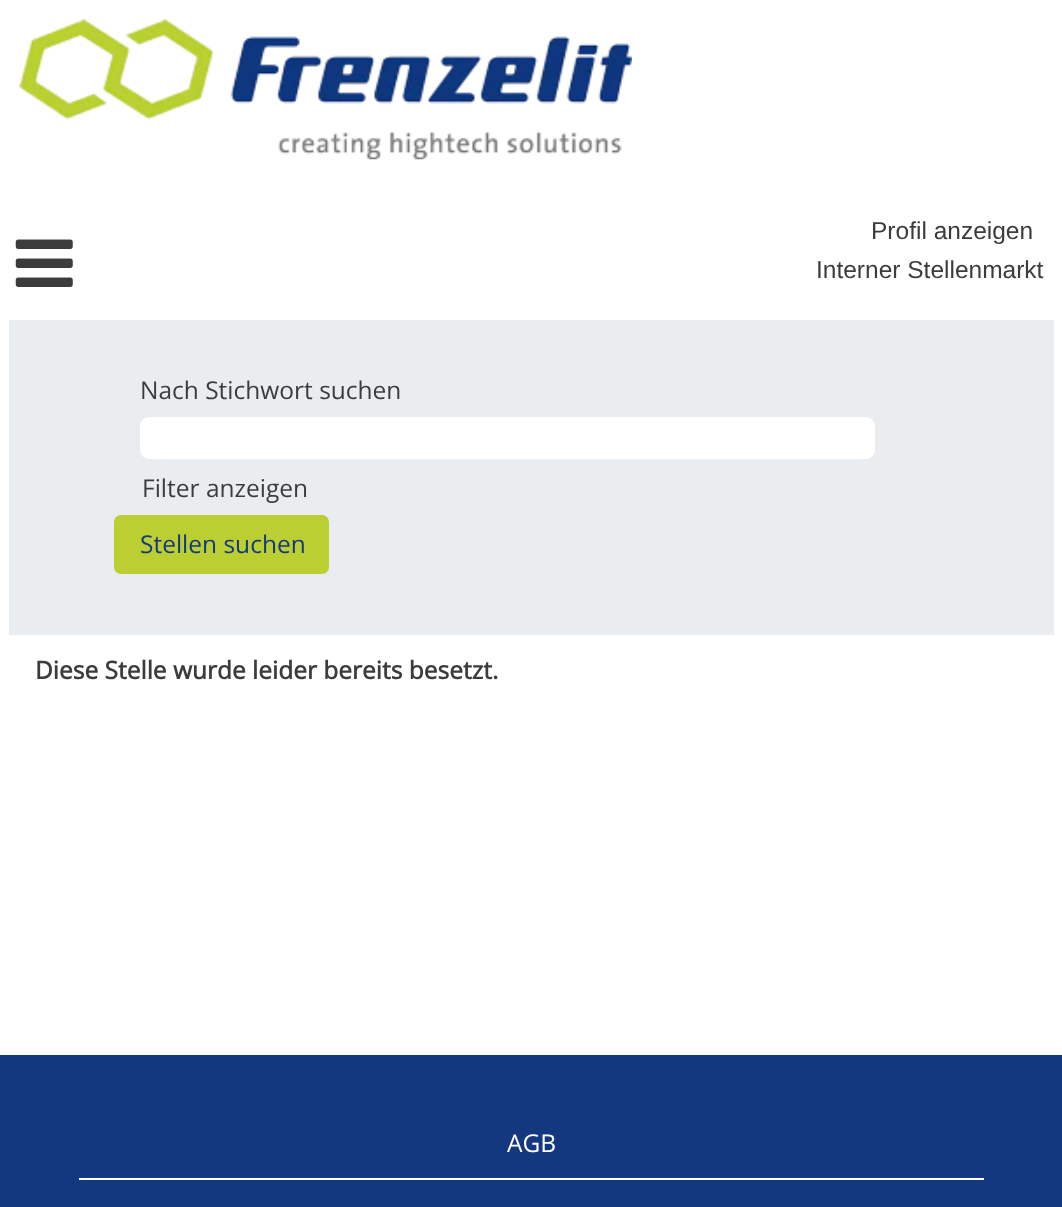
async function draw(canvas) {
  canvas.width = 1062
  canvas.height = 1207
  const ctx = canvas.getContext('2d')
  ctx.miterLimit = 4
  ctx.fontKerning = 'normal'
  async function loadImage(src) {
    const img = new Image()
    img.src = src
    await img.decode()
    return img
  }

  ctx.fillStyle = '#fff'
  ctx.fillRect(0, 0, 1062, 1207)
  ctx.drawImage(await loadImage('image0.png'), 19, 19, 613, 141)
  ctx.drawImage(await loadImage('image1.png'), 15, 239, 58, 48)
  ctx.font = '24.5px Liberation Sans'
  ctx.fillStyle = '#3c3c3c'
  ctx.fillText('Profil anzeigen', 871, 239)
  ctx.fillText('Interner Stellenmarkt', 816, 278)
  ctx.fillStyle = '#e9edf0'
  ctx.fillRect(9, 320, 1045, 315)
  ctx.font = '24.5px Open Sans'
  ctx.fillStyle = '#3c3c3c'
  ctx.fillText('Nach Stichwort suchen', 140, 399)
  ctx.fillStyle = '#fff'
  ctx.beginPath()
  ctx.roundRect(140, 417, 735, 42, 9)
  ctx.fill()
  ctx.fillStyle = '#3c3c3c'
  ctx.fillText('Filter anzeigen', 142, 497)
  ctx.fillStyle = '#bbcf33'
  ctx.beginPath()
  ctx.roundRect(114, 515, 215, 59, 7)
  ctx.fill()
  ctx.fillStyle = '#14387f'
  ctx.fillText('Stellen suchen', 140, 553)
  ctx.font = 'bold 24.5px Open Sans'
  ctx.fillStyle = '#3c3c3c'
  ctx.fillText('Diese Stelle wurde leider bereits besetzt.', 35, 679)
  ctx.fillStyle = '#14387f'
  ctx.fillRect(0, 1055, 1062, 152)
  ctx.fillStyle = '#fff'
  ctx.fillRect(79, 1178, 905, 2)
  ctx.font = '24.5px Open Sans'
  ctx.fillText('AGB', 507, 1152)
}

draw(document.querySelector('canvas'))
